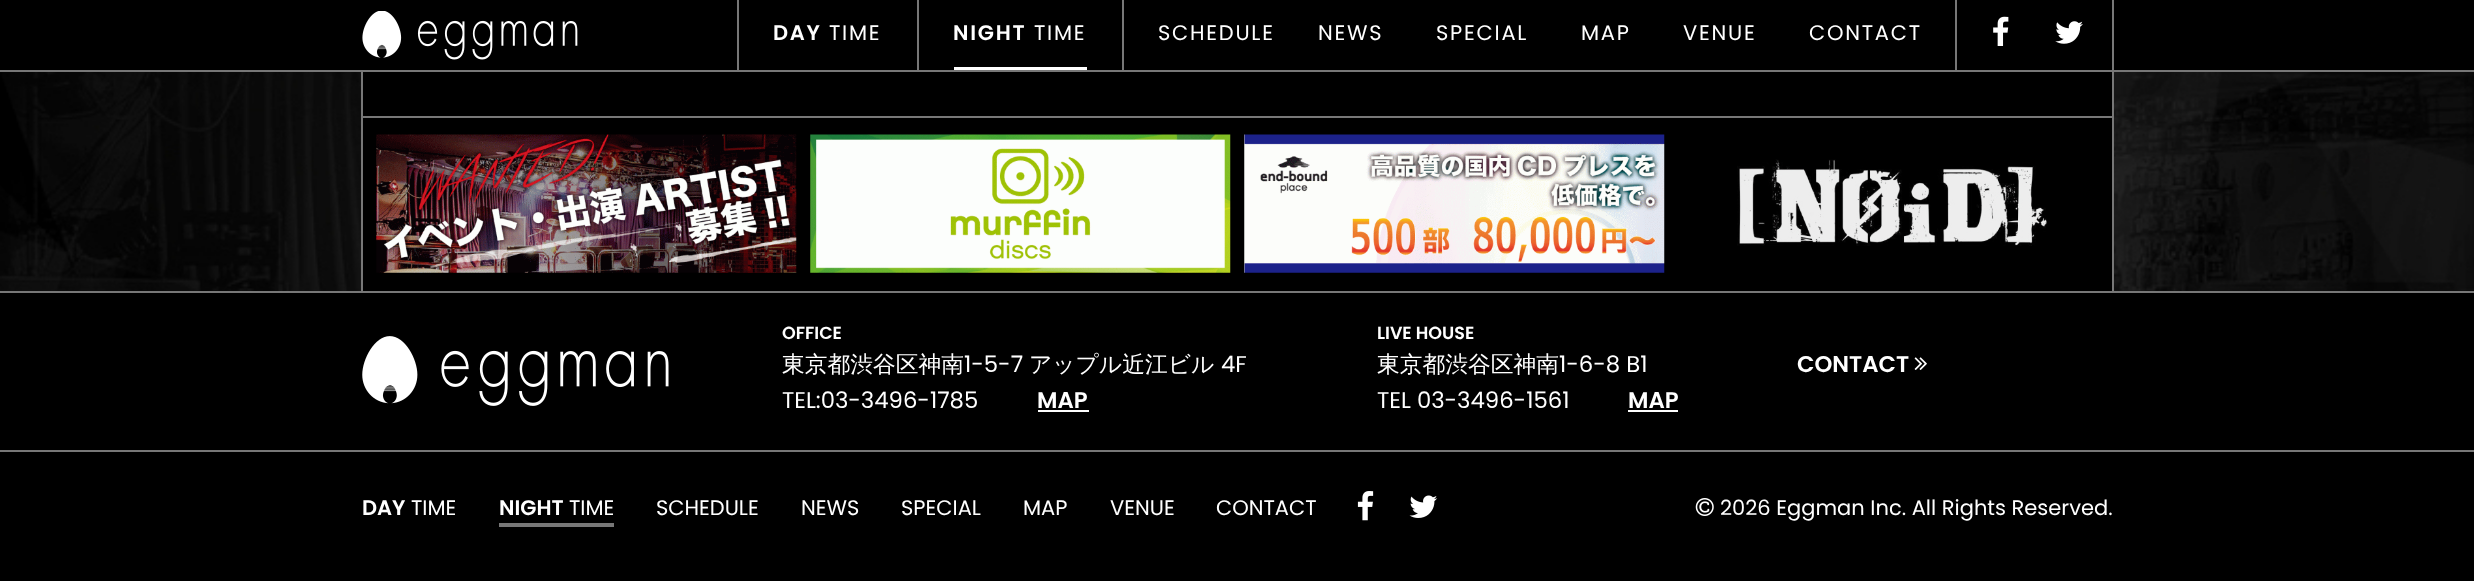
async function draw(canvas) {
  canvas.width = 2474
  canvas.height = 581
  const ctx = canvas.getContext('2d')
  ctx.miterLimit = 4
  ctx.fontKerning = 'normal'
  async function loadImage(src) {
    const img = new Image()
    img.src = src
    await img.decode()
    return img
  }

  ctx.fillStyle = '#fff'
  ctx.fillRect(0, 0, 2474, 581)
  ctx.drawImage(await loadImage('image0.png'), 0, 72, 2474, 219)
  ctx.fillStyle = '#000'
  ctx.fillRect(0, 0, 2474, 70)
  ctx.fillStyle = '#777'
  ctx.fillRect(0, 70, 2474, 2)
  ctx.drawImage(await loadImage('image1.png'), 362, 11, 216, 49)
  ctx.fillRect(2112, 0, 2, 70)
  ctx.fillRect(737, 0, 2, 70)
  ctx.letterSpacing = '1.75px'
  ctx.font = '600 21px Poppins'
  ctx.fillStyle = '#fff'
  ctx.fillText('DAY', 773, 40)
  ctx.font = '21px Poppins'
  ctx.fillText('TIME', 829, 40)
  ctx.fillStyle = '#777'
  ctx.fillRect(917, 0, 2, 70)
  ctx.fillStyle = '#fff'
  ctx.fillRect(954, 67, 133, 3)
  ctx.font = '600 21px Poppins'
  ctx.fillText('NIGHT', 953, 40)
  ctx.font = '21px Poppins'
  ctx.fillText('TIME', 1034, 40)
  ctx.fillStyle = '#777'
  ctx.fillRect(1122, 0, 2, 70)
  ctx.fillStyle = '#fff'
  ctx.fillText('SCHEDULE', 1158, 40)
  ctx.fillText('NEWS', 1318, 40)
  ctx.fillText('SPECIAL', 1436, 40)
  ctx.fillText('MAP', 1581, 40)
  ctx.fillText('VENUE', 1683, 40)
  ctx.fillText('CONTACT', 1809, 40)
  ctx.fillStyle = '#777'
  ctx.fillRect(1955, 0, 2, 70)
  ctx.drawImage(await loadImage('image2.png'), 1993, 16, 16, 30)
  ctx.drawImage(await loadImage('image3.png'), 2055, 21, 28, 23)
  ctx.fillStyle = '#000'
  ctx.fillRect(363, 72, 1749, 219)
  ctx.fillStyle = '#777'
  ctx.fillRect(2112, 72, 2, 219)
  ctx.fillRect(361, 72, 2, 219)
  ctx.fillRect(362, 116, 1750, 2)
  ctx.drawImage(await loadImage('image4.png'), 376, 134, 421, 139)
  ctx.drawImage(await loadImage('image5.png'), 810, 134, 421, 139)
  ctx.drawImage(await loadImage('image6.png'), 1244, 134, 421, 139)
  ctx.drawImage(await loadImage('image7.png'), 1737, 159, 310, 87)
  ctx.fillStyle = '#000'
  ctx.fillRect(0, 293, 2474, 288)
  ctx.fillStyle = '#777'
  ctx.fillRect(0, 291, 2474, 2)
  ctx.drawImage(await loadImage('image8.png'), 362, 336, 307, 70)
  ctx.letterSpacing = '0px'
  ctx.font = '600 17.5px Poppins'
  ctx.fillStyle = '#fff'
  ctx.fillText('OFFICE', 782, 339)
  ctx.font = '500 22.75px WenQuanYi Zen Hei'
  ctx.fillText('東京都渋谷区神南', 782, 372)
  ctx.font = '22.75px Poppins'
  ctx.fillText('1-5-7', 964, 372)
  ctx.font = '500 22.75px WenQuanYi Zen Hei'
  ctx.fillText('アップル近江ビル', 1029, 372)
  ctx.font = '22.75px Poppins'
  ctx.fillText('4F', 1221, 372)
  ctx.fillText('TEL:03-3496-1785', 782, 408)
  ctx.font = '600 22.75px Poppins'
  ctx.fillText('MAP', 1037, 408)
  ctx.fillRect(1038, 410, 51, 2)
  ctx.font = '600 17.5px Poppins'
  ctx.fillText('LIVE HOUSE', 1377, 339)
  ctx.font = '500 22.75px WenQuanYi Zen Hei'
  ctx.fillText('東京都渋谷区神南', 1377, 372)
  ctx.font = '22.75px Poppins'
  ctx.fillText('1-6-8 B1', 1559, 372)
  ctx.fillText('TEL 03-3496-1561', 1377, 408)
  ctx.font = '600 22.75px Poppins'
  ctx.fillText('MAP', 1628, 408)
  ctx.fillRect(1628, 410, 50, 2)
  ctx.fillText('CONTACT', 1797, 372)
  ctx.drawImage(await loadImage('image9.png'), 1914, 357, 13, 13)
  ctx.fillStyle = '#777'
  ctx.fillRect(0, 450, 2474, 2)
  ctx.font = '600 21px Poppins'
  ctx.fillStyle = '#fff'
  ctx.fillText('DAY', 362, 515)
  ctx.font = '21px Poppins'
  ctx.fillText('TIME', 411, 515)
  ctx.fillStyle = '#777'
  ctx.fillRect(499, 523, 115, 4)
  ctx.font = '600 21px Poppins'
  ctx.fillStyle = '#fff'
  ctx.fillText('NIGHT', 499, 515)
  ctx.font = '21px Poppins'
  ctx.fillText('TIME', 569, 515)
  ctx.fillText('SCHEDULE', 656, 515)
  ctx.fillText('NEWS', 801, 515)
  ctx.fillText('SPECIAL', 901, 515)
  ctx.fillText('MAP', 1023, 515)
  ctx.fillText('VENUE', 1110, 515)
  ctx.fillText('CONTACT', 1216, 515)
  ctx.drawImage(await loadImage('image10.png'), 1357, 491, 17, 30)
  ctx.drawImage(await loadImage('image11.png'), 1409, 495, 29, 23)
  ctx.drawImage(await loadImage('image12.png'), 1695, 498, 19, 18)
  ctx.fillText('2026 Eggman Inc. All Rights Reserved.', 1720, 515)
}

draw(document.querySelector('canvas'))
